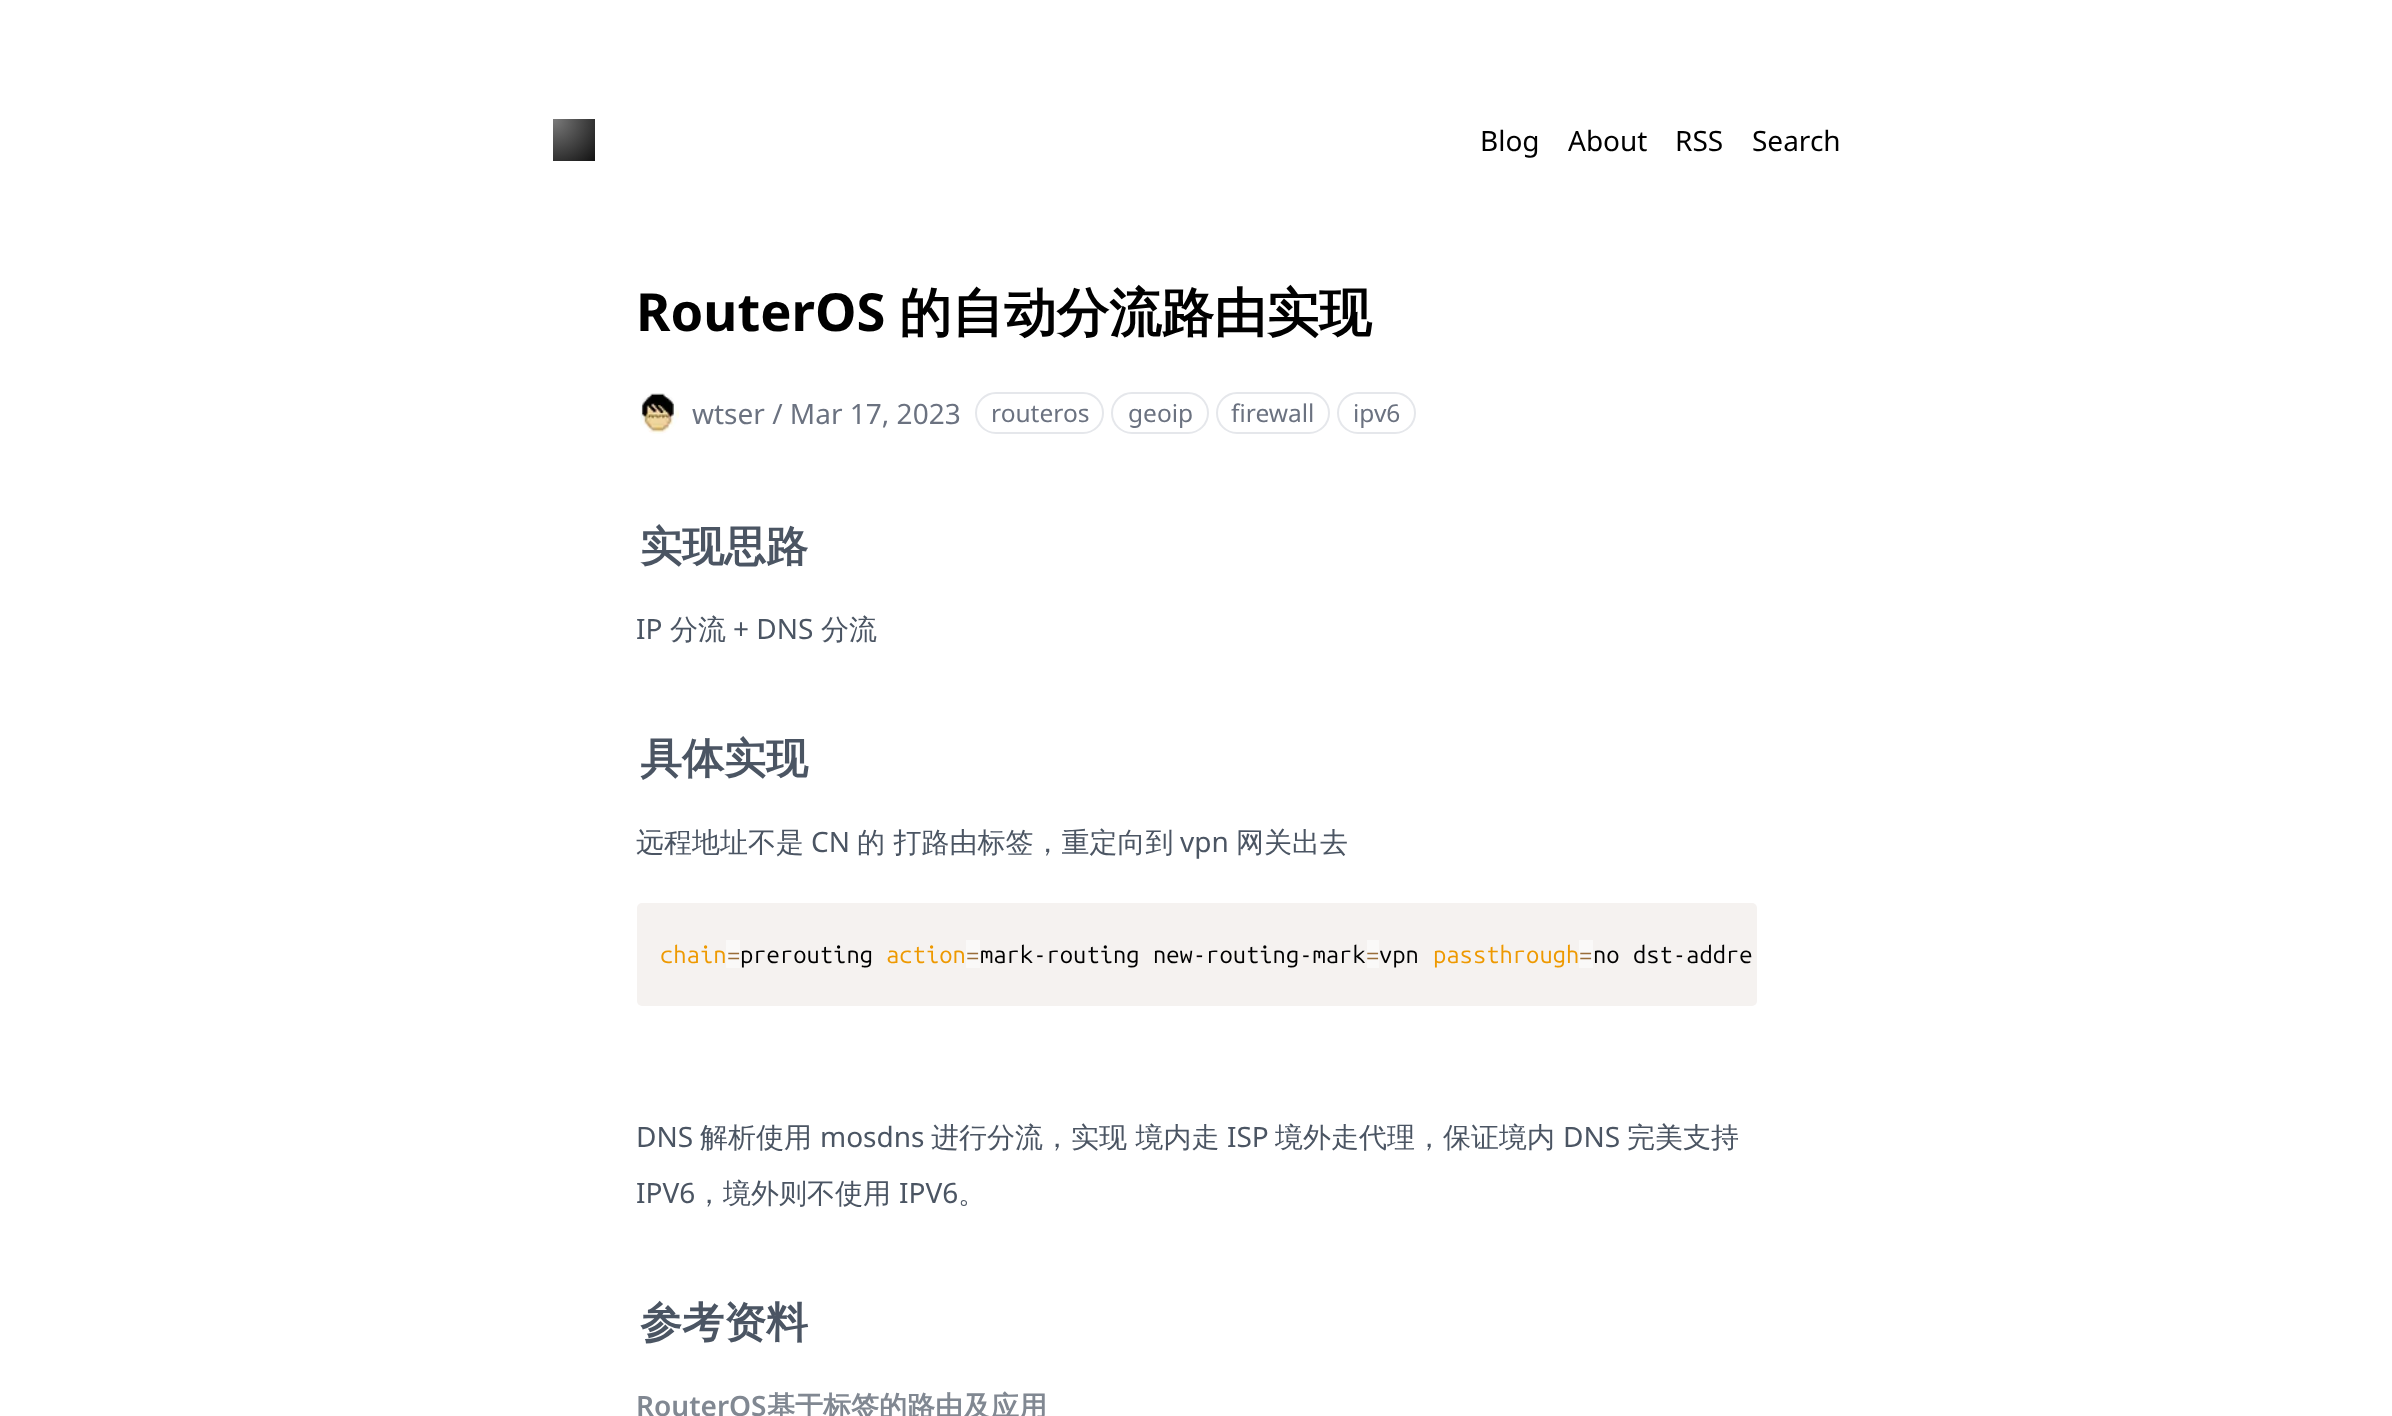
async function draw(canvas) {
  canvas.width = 2392
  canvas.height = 1416
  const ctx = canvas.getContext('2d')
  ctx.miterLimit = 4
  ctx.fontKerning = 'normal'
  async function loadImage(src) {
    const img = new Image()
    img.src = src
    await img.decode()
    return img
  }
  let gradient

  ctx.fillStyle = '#fff'
  ctx.fillRect(0, 0, 2392, 1416)
  gradient = ctx.createRadialGradient(553, 119, 0, 553, 119, 69)
  gradient.addColorStop(0, '#7c7c7c')
  gradient.addColorStop(1, '#000')
  ctx.fillStyle = gradient
  ctx.fillRect(553, 119, 42, 42)
  ctx.font = '28px Noto Sans'
  ctx.fillStyle = '#000'
  ctx.fillText('Blog', 1480, 151)
  ctx.fillText('About', 1568, 151)
  ctx.fillText('RSS', 1675, 151)
  ctx.fillText('Search', 1752, 151)
  ctx.font = 'bold 52.5px Noto Sans'
  ctx.fillText('RouterOS', 636, 331)
  ctx.font = 'bold 52.5px WenQuanYi Zen Hei'
  ctx.fillText('的自动分流路由实现', 899, 331)
  ctx.drawImage(await loadImage('image0.png'), 640, 393, 39, 41)
  ctx.font = '28px Noto Sans'
  ctx.fillStyle = '#6b7280'
  ctx.fillText('wtser / Mar 17, 2023', 692, 424)
  ctx.beginPath()
  ctx.roundRect(976, 393, 127, 40, 20)
  ctx.strokeStyle = '#e5e7eb'
  ctx.lineWidth = 2
  ctx.stroke()
  ctx.font = '24.5px Noto Sans'
  ctx.fillText('routeros', 991, 422)
  ctx.beginPath()
  ctx.roundRect(1112, 393, 96, 40, 20)
  ctx.stroke()
  ctx.fillText('geoip', 1128, 422)
  ctx.beginPath()
  ctx.roundRect(1217, 393, 112, 40, 20)
  ctx.stroke()
  ctx.fillText('firewall', 1231, 422)
  ctx.beginPath()
  ctx.roundRect(1338, 393, 77, 40, 20)
  ctx.stroke()
  ctx.fillText('ipv6', 1353, 422)
  ctx.font = 'bold 42px WenQuanYi Zen Hei'
  ctx.fillStyle = '#4b5563'
  ctx.fillText('实现思路', 640, 561)
  ctx.font = '28px Noto Sans'
  ctx.fillText('IP', 636, 639)
  ctx.font = '500 28px WenQuanYi Zen Hei'
  ctx.fillText('分流', 670, 639)
  ctx.font = '28px Noto Sans'
  ctx.fillText('+ DNS', 733, 639)
  ctx.font = '500 28px WenQuanYi Zen Hei'
  ctx.fillText('分流', 821, 639)
  ctx.font = 'bold 42px WenQuanYi Zen Hei'
  ctx.fillText('具体实现', 640, 773)
  ctx.font = '500 28px WenQuanYi Zen Hei'
  ctx.fillText('远程地址不是', 636, 852)
  ctx.font = '28px Noto Sans'
  ctx.fillText('CN', 811, 852)
  ctx.font = '500 28px WenQuanYi Zen Hei'
  ctx.fillText('的 打路由标签，重定向到', 857, 852)
  ctx.font = '28px Noto Sans'
  ctx.fillText('vpn', 1180, 852)
  ctx.font = '500 28px WenQuanYi Zen Hei'
  ctx.fillText('网关出去', 1236, 852)
  ctx.fillStyle = '#f5f2f0'
  ctx.beginPath()
  ctx.roundRect(637, 903, 1120, 103, 5)
  ctx.fill()
  ctx.font = '23.75px Ubuntu Mono'
  ctx.fillStyle = '#e90'
  ctx.fillText('chain', 660, 963)
  ctx.fillStyle = '#faf9f8'
  ctx.fillRect(726, 940, 14, 28)
  ctx.fillStyle = '#9a6e3a'
  ctx.fillText('=', 727, 963)
  ctx.fillStyle = '#000'
  ctx.fillText('prerouting', 740, 963)
  ctx.fillStyle = '#e90'
  ctx.fillText('action', 886, 963)
  ctx.fillStyle = '#faf9f8'
  ctx.fillRect(966, 940, 14, 28)
  ctx.fillStyle = '#9a6e3a'
  ctx.fillText('=', 966, 963)
  ctx.fillStyle = '#000'
  ctx.fillText('mark-routing new-routing-mark vpn', 980, 963)
  ctx.fillStyle = '#faf9f8'
  ctx.fillRect(1367, 940, 12, 28)
  ctx.fillStyle = '#e90'
  ctx.fillText('passthrough', 1433, 963)
  ctx.fillStyle = '#000'
  ctx.fillText('no dst-addre', 1593, 963)
  ctx.fillStyle = '#faf9f8'
  ctx.fillRect(1579, 940, 14, 28)
  ctx.fillStyle = '#9a6e3a'
  ctx.fillText('=', 1366, 963)
  ctx.fillText('=', 1579, 963)
  ctx.font = '28px Noto Sans'
  ctx.fillStyle = '#4b5563'
  ctx.fillText('DNS', 636, 1147)
  ctx.font = '500 28px WenQuanYi Zen Hei'
  ctx.fillText('解析使用', 700, 1147)
  ctx.font = '28px Noto Sans'
  ctx.fillText('mosdns', 820, 1147)
  ctx.font = '500 28px WenQuanYi Zen Hei'
  ctx.fillText('进行分流，实现 境内走', 931, 1147)
  ctx.font = '28px Noto Sans'
  ctx.fillText('ISP', 1227, 1147)
  ctx.font = '500 28px WenQuanYi Zen Hei'
  ctx.fillText('境外走代理，保证境内', 1275, 1147)
  ctx.font = '28px Noto Sans'
  ctx.fillText('DNS', 1563, 1147)
  ctx.font = '500 28px WenQuanYi Zen Hei'
  ctx.fillText('完美支持', 1627, 1147)
  ctx.font = '28px Noto Sans'
  ctx.fillText('IPV6', 636, 1203)
  ctx.font = '500 28px WenQuanYi Zen Hei'
  ctx.fillText('，境外则不使用', 695, 1203)
  ctx.font = '28px Noto Sans'
  ctx.fillText('IPV6', 899, 1203)
  ctx.font = '500 28px WenQuanYi Zen Hei'
  ctx.fillText('。', 958, 1203)
  ctx.font = 'bold 42px WenQuanYi Zen Hei'
  ctx.fillText('参考资料', 640, 1337)
  ctx.font = '600 28px Noto Sans'
  ctx.fillStyle = '#818892'
  ctx.fillText('RouterOS', 636, 1416)
  ctx.font = 'bold 28px WenQuanYi Zen Hei'
  ctx.fillText('基于标签的路由及应用', 767, 1416)
}

draw(document.querySelector('canvas'))
